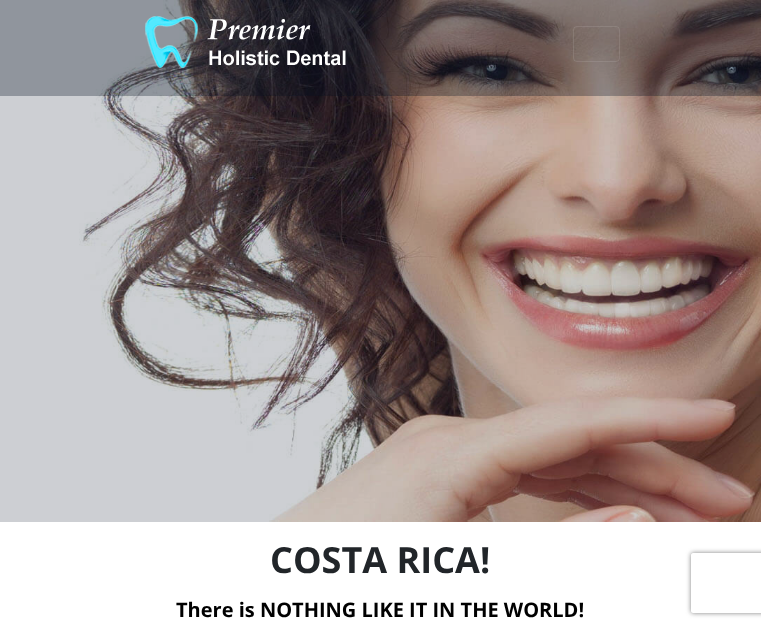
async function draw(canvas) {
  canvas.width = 761
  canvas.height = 627
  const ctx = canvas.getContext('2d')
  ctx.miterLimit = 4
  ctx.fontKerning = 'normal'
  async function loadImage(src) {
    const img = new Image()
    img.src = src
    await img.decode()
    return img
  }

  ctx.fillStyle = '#fff'
  ctx.fillRect(0, 0, 761, 627)
  ctx.fillStyle = '#cdcfd3'
  ctx.fillRect(0, 0, 79, 522)
  ctx.drawImage(await loadImage('image0.png'), 79, 0, 682, 522)
  ctx.fillStyle = '#0410214d'
  ctx.fillRect(0, 0, 761, 96)
  ctx.drawImage(await loadImage('image1.png'), 145, 16, 201, 52)
  ctx.beginPath()
  ctx.roundRect(573.5, 26.5, 46, 35, 3.5)
  ctx.strokeStyle = '#ffffff1a'
  ctx.stroke()
  ctx.font = 'bold 36px Open Sans'
  ctx.fillStyle = '#212529'
  ctx.fillText('COSTA RICA!', 270, 573)
  ctx.font = 'bold 20px Open Sans'
  ctx.fillStyle = '#000'
  ctx.fillText('There is NOTHING LIKE IT IN THE WORLD!', 176, 617)
  ctx.save()
  ctx.beginPath()
  ctx.moveTo(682, 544)
  ctx.lineTo(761, 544)
  ctx.lineTo(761, 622)
  ctx.lineTo(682, 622)
  ctx.closePath()
  ctx.moveTo(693, 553)
  ctx.lineTo(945, 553)
  ctx.bezierCurveTo(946, 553, 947, 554, 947, 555)
  ctx.lineTo(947, 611)
  ctx.bezierCurveTo(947, 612, 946, 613, 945, 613)
  ctx.lineTo(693, 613)
  ctx.bezierCurveTo(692, 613, 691, 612, 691, 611)
  ctx.lineTo(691, 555)
  ctx.bezierCurveTo(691, 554, 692, 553, 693, 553)
  ctx.closePath()
  ctx.clip('evenodd')
  ctx.fillStyle = '#808080'
  ctx.filter = 'blur(2.5px)'
  ctx.beginPath()
  ctx.roundRect(691, 553, 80, 60, 2)
  ctx.fill()
  ctx.filter = 'none'
  ctx.restore()
}

draw(document.querySelector('canvas'))
